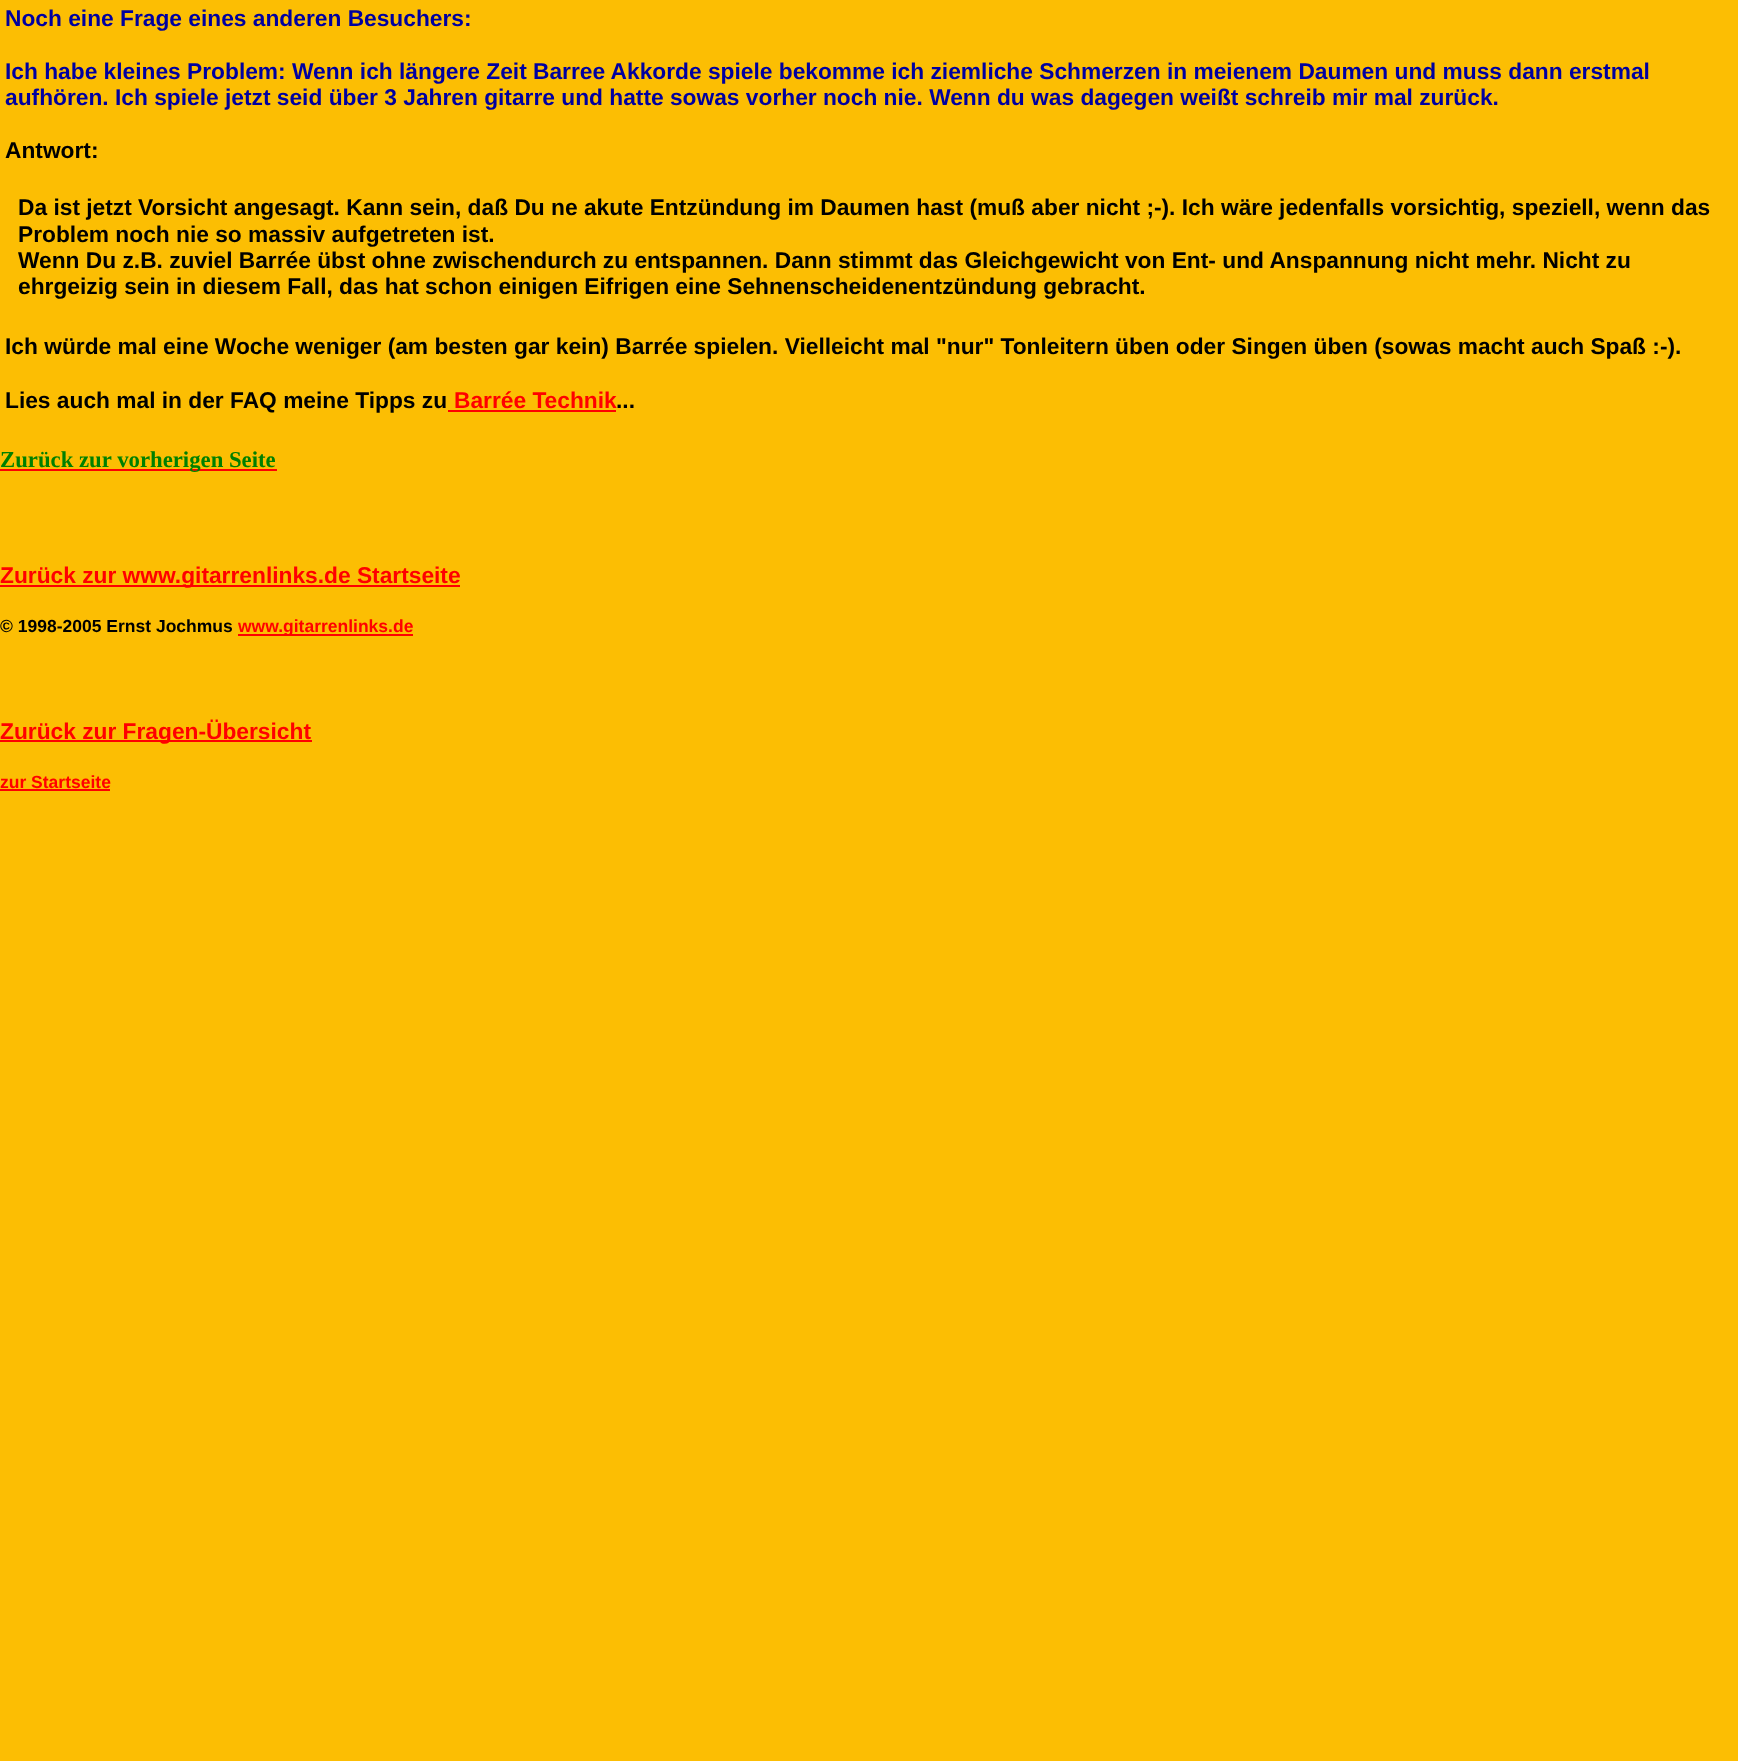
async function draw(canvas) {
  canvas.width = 1738
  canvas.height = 1761
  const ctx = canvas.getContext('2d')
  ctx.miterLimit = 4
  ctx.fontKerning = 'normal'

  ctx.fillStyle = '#fcbe03'
  ctx.fillRect(0, 0, 1738, 1761)
  ctx.font = 'bold 22.75px Liberation Sans'
  ctx.fillStyle = '#0000a0'
  ctx.fillText('Noch eine Frage eines anderen Besuchers:', 5, 26)
  ctx.fillText('Ich habe kleines Problem: Wenn ich längere Zeit Barree Akkorde spiele bekomme ich ziemliche Schmerzen in meienem Daumen und muss dann erstmal', 5, 79)
  ctx.fillText('aufhören. Ich spiele jetzt seid über 3 Jahren gitarre und hatte sowas vorher noch nie. Wenn du was dagegen weißt schreib mir mal zurück.', 5, 105)
  ctx.fillStyle = '#000'
  ctx.fillText('Antwort:', 5, 158)
  ctx.fillText('Da ist jetzt Vorsicht angesagt. Kann sein, daß Du ne akute Entzündung im Daumen hast (muß aber nicht ;-). Ich wäre jedenfalls vorsichtig, speziell, wenn das', 18, 215)
  ctx.fillText('Problem noch nie so massiv aufgetreten ist.', 18, 242)
  ctx.fillText('Wenn Du z.B. zuviel Barrée übst ohne zwischendurch zu entspannen. Dann stimmt das Gleichgewicht von Ent- und Anspannung nicht mehr. Nicht zu', 18, 268)
  ctx.fillText('ehrgeizig sein in diesem Fall, das hat schon einigen Eifrigen eine Sehnenscheidenentzündung gebracht.', 18, 294)
  ctx.fillText('Ich würde mal eine Woche weniger (am besten gar kein) Barrée spielen. Vielleicht mal "nur" Tonleitern üben oder Singen üben (sowas macht auch Spaß :-).', 5, 354)
  ctx.fillText('Lies auch mal in der FAQ meine Tipps zu', 5, 408)
  ctx.fillStyle = '#f00'
  ctx.fillText('Barrée Technik', 454, 408)
  ctx.fillRect(448, 410, 168, 2)
  ctx.fillStyle = '#000'
  ctx.fillText('...', 616, 408)
  ctx.fillStyle = '#f00'
  ctx.fillRect(0, 469, 277, 2)
  ctx.font = 'bold 22.75px Liberation Serif'
  ctx.fillStyle = '#008000'
  ctx.fillText('Zurück zur vorherigen Seite', 0, 467)
  ctx.fillStyle = '#f00'
  ctx.fillRect(0, 585, 460, 2)
  ctx.font = 'bold 22.75px Liberation Sans'
  ctx.fillText('Zurück zur www.gitarrenlinks.de Startseite', 0, 583)
  ctx.font = 'bold 17.5px Liberation Sans'
  ctx.fillStyle = '#000'
  ctx.fillText('© 1998-2005 Ernst Jochmus', 0, 632)
  ctx.fillStyle = '#f00'
  ctx.fillRect(238, 634, 175, 2)
  ctx.fillText('www.gitarrenlinks.de', 238, 632)
  ctx.fillRect(0, 740, 312, 2)
  ctx.font = 'bold 22.75px Liberation Sans'
  ctx.fillText('Zurück zur Fragen-Übersicht', 0, 739)
  ctx.font = 'bold 17.5px Liberation Sans'
  ctx.fillText('zur Startseite', 0, 788)
  ctx.fillRect(0, 789, 110, 2)
}

draw(document.querySelector('canvas'))
